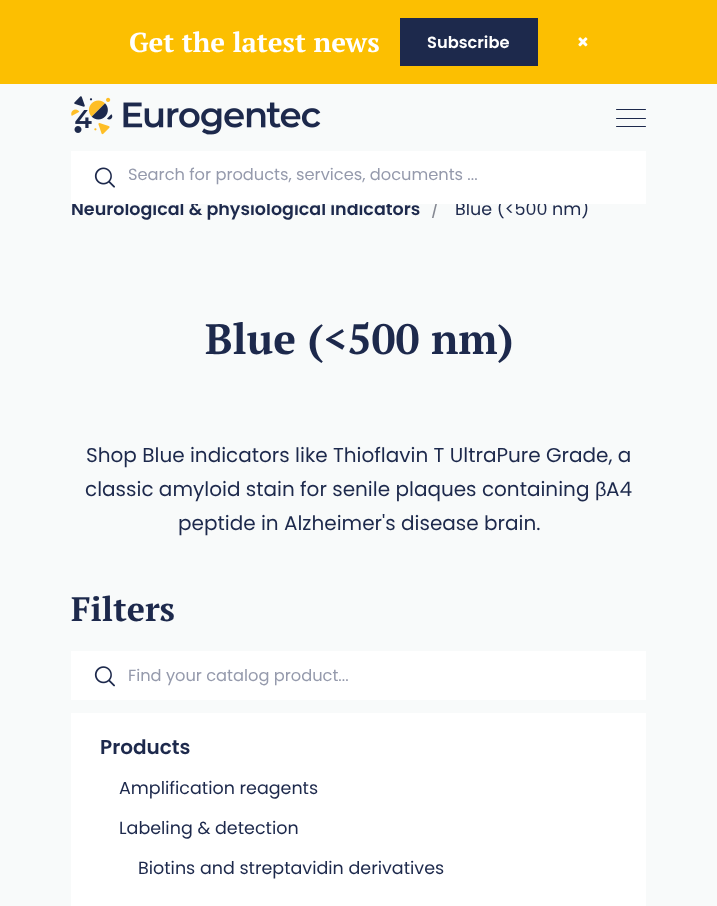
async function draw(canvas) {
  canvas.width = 717
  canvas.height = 906
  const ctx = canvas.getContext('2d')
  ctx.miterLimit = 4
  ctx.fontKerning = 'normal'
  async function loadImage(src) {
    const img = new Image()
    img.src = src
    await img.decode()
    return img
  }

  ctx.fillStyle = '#f8fafa'
  ctx.fillRect(0, 0, 717, 906)
  ctx.fillStyle = '#fcbf01'
  ctx.fillRect(0, 0, 717, 84)
  ctx.font = 'bold 27.5px PT Serif'
  ctx.fillStyle = '#fff'
  ctx.fillText('Get the latest news', 129, 52)
  ctx.fillStyle = '#1d294c'
  ctx.fillRect(400, 18, 138, 48)
  ctx.font = '600 16.25px Poppins'
  ctx.fillStyle = '#fff'
  ctx.fillText('Subscribe', 427, 48)
  ctx.drawImage(await loadImage('image0.png'), 578, 37, 10, 10)
  ctx.drawImage(await loadImage('image1.png'), 71, 96, 250, 39)
  ctx.fillStyle = '#1d294c'
  ctx.beginPath()
  ctx.roundRect(616, 109, 30, 1, 0.5)
  ctx.fill()
  ctx.beginPath()
  ctx.roundRect(616, 118, 30, 1, 0.5)
  ctx.fill()
  ctx.beginPath()
  ctx.roundRect(616, 126, 30, 1, 0.5)
  ctx.fill()
  ctx.font = '600 17.5px Poppins'
  ctx.fillText('Neurological & physiological indicators', 71, 215)
  ctx.font = '17.5px Poppins'
  ctx.fillStyle = '#858892'
  ctx.fillText('/', 431, 215)
  ctx.fillStyle = '#1d294c'
  ctx.fillText('Blue (<500 nm)', 455, 215)
  ctx.fillStyle = '#fff'
  ctx.fillRect(71, 151, 575, 53)
  ctx.drawImage(await loadImage('image2.png'), 94, 167, 21, 21)
  ctx.font = '16.25px Poppins'
  ctx.fillStyle = '#959aac'
  ctx.fillText('Search for products, services, documents ...', 128, 180)
  ctx.font = 'bold 42.5px PT Serif'
  ctx.fillStyle = '#1d294c'
  ctx.fillText('Blue (<500 nm)', 205, 354)
  ctx.font = '20px Poppins'
  ctx.fillText('Shop Blue indicators like Thioflavin T UltraPure Grade, a', 86, 462)
  ctx.fillText('classic amyloid stain for senile plaques containing', 85, 496)
  ctx.font = '20px Liberation Sans'
  ctx.fillText('β', 595, 496)
  ctx.font = '20px Poppins'
  ctx.fillText('A4', 606, 496)
  ctx.fillText('peptide in Alzheimer\'s disease brain.', 178, 530)
  ctx.font = 'bold 34px PT Serif'
  ctx.fillText('Filters', 71, 621)
  ctx.fillStyle = '#fff'
  ctx.fillRect(71, 651, 575, 49)
  ctx.drawImage(await loadImage('image3.png'), 94, 666, 21, 21)
  ctx.font = '16.25px Poppins'
  ctx.fillStyle = '#959aac'
  ctx.fillText('Find your catalog product...', 128, 681)
  ctx.fillStyle = '#fff'
  ctx.fillRect(71, 713, 575, 193)
  ctx.font = '600 20px Poppins'
  ctx.fillStyle = '#1d294c'
  ctx.fillText('Products', 100, 754)
  ctx.font = '17.5px Poppins'
  ctx.fillText('Amplification reagents', 119, 794)
  ctx.fillText('Labeling & detection', 119, 834)
  ctx.fillText('Biotins and streptavidin derivatives', 138, 874)
}

draw(document.querySelector('canvas'))
